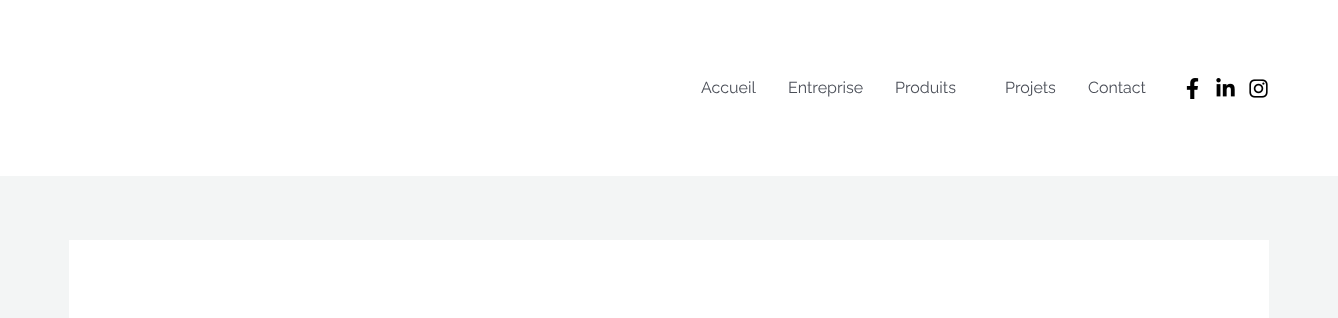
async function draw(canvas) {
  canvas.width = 1338
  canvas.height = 318
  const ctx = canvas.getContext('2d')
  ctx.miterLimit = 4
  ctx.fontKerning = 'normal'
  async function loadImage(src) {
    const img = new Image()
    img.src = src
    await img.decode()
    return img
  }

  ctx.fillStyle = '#f3f5f5'
  ctx.fillRect(0, 0, 1338, 318)
  ctx.fillStyle = '#fff'
  ctx.fillRect(0, 0, 1338, 176)
  ctx.font = '100 16px Raleway'
  ctx.fillStyle = '#4b4f58'
  ctx.fillText('Accueil', 701, 93)
  ctx.fillText('Entreprise', 788, 93)
  ctx.fillText('Produits', 895, 93)
  ctx.fillText('Projets', 1005, 93)
  ctx.fillText('Contact', 1088, 93)
  ctx.drawImage(await loadImage('image0.png'), 1186, 78, 13, 21)
  ctx.drawImage(await loadImage('image1.png'), 1216, 78, 19, 19)
  ctx.drawImage(await loadImage('image2.png'), 1249, 79, 19, 19)
  ctx.fillStyle = '#fff'
  ctx.fillRect(69, 240, 1200, 78)
}

draw(document.querySelector('canvas'))
